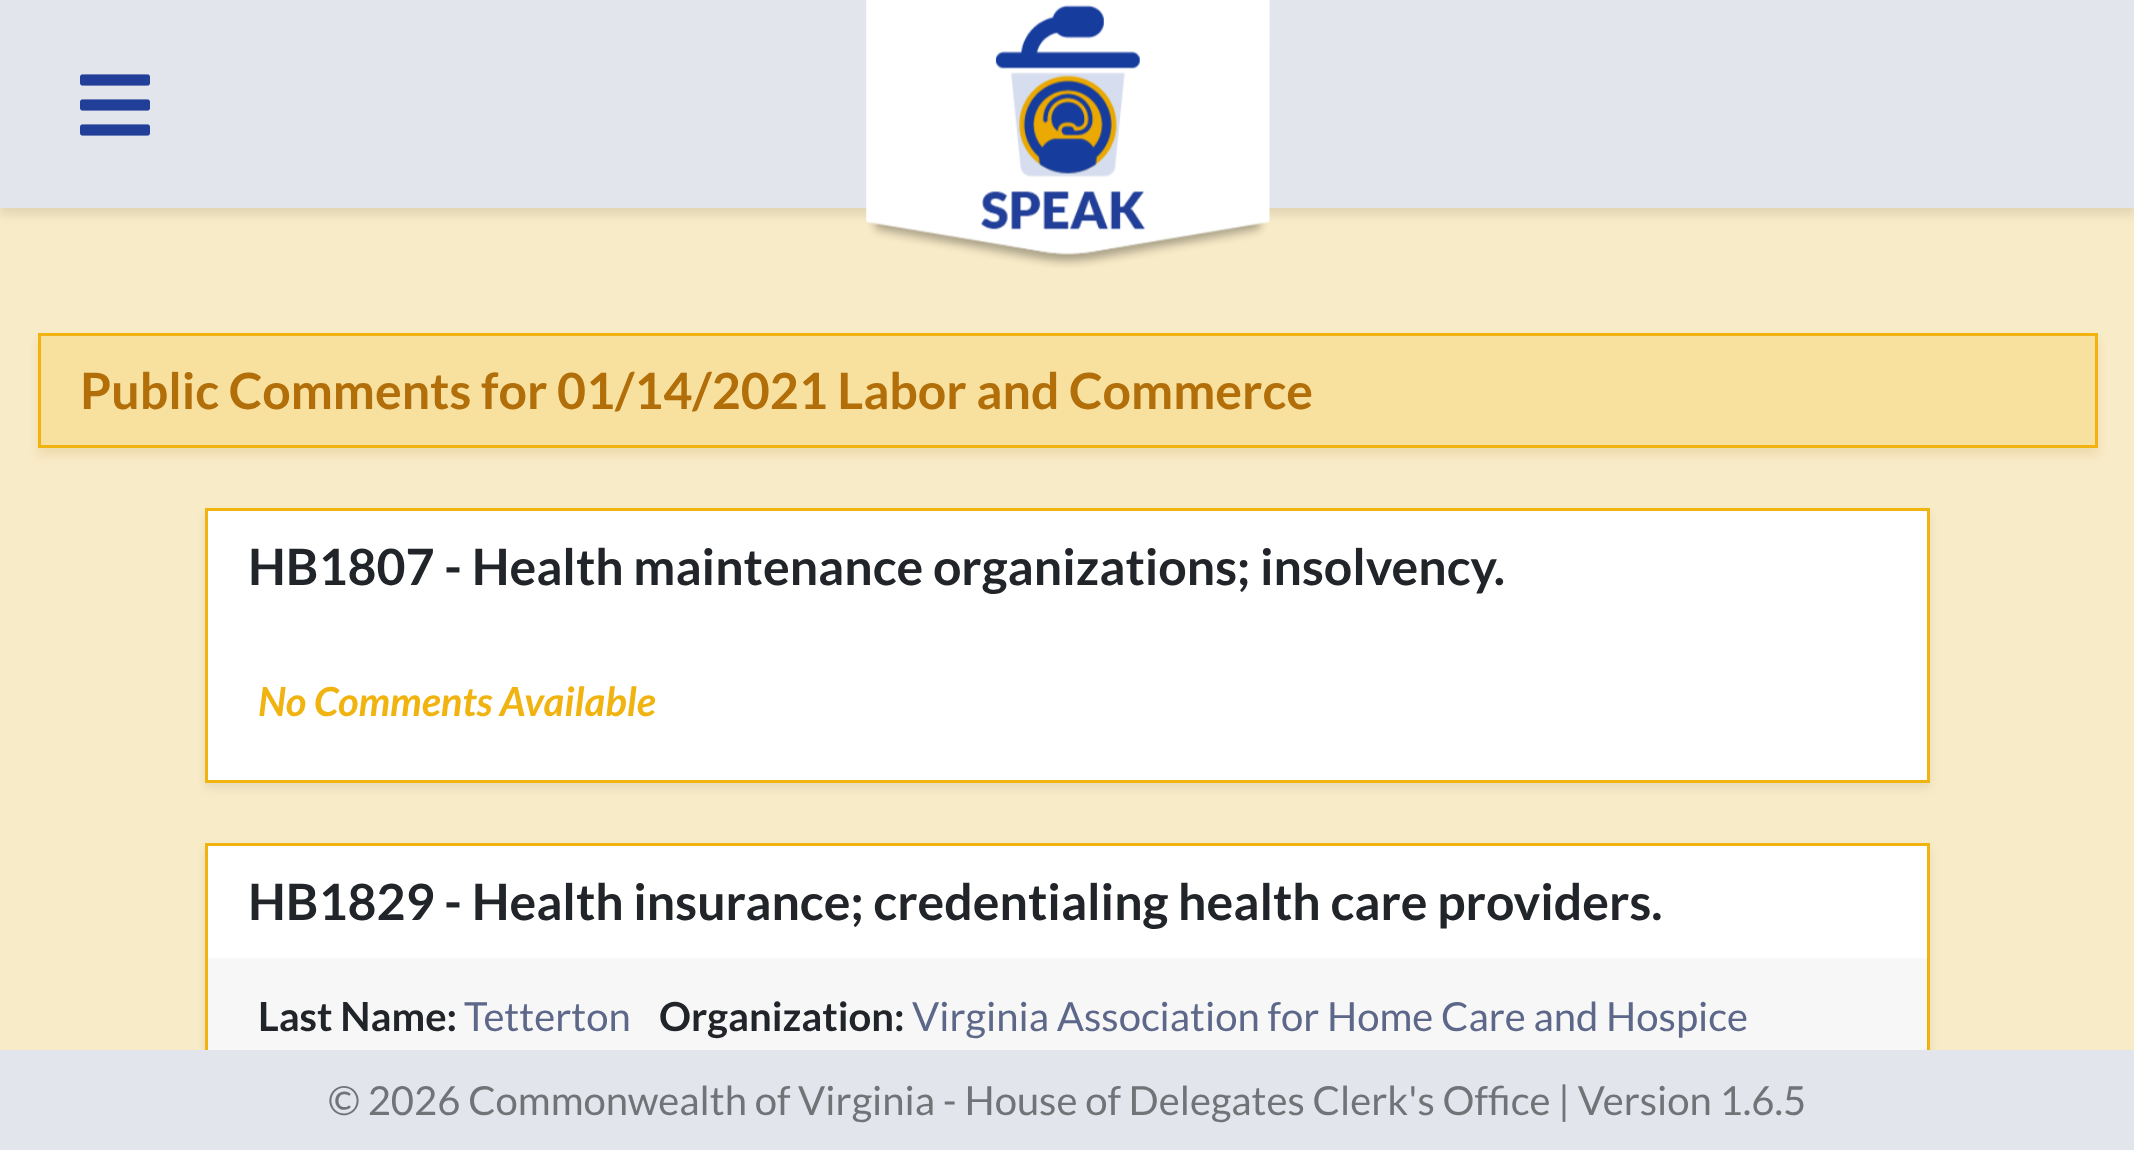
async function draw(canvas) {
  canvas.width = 2134
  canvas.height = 1150
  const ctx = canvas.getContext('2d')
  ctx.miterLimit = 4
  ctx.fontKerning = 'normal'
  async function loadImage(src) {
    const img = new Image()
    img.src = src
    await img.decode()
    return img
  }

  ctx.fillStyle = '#f8ebc7'
  ctx.fillRect(0, 0, 2134, 1150)
  ctx.fillStyle = '#00000017'
  ctx.filter = 'blur(5px)'
  ctx.beginPath()
  ctx.rect(0, 8, 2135, 207)
  ctx.fill()
  ctx.filter = 'none'
  ctx.fillStyle = '#e2e5ec'
  ctx.fillRect(0, 0, 2134, 208)
  ctx.drawImage(await loadImage('image0.png'), 80, 74, 70, 62)
  ctx.drawImage(await loadImage('image1.png'), 866, 0, 404, 268)
  ctx.fillStyle = '#b16e0921'
  ctx.filter = 'blur(5px)'
  ctx.beginPath()
  ctx.rect(38, 340, 2060, 115)
  ctx.fill()
  ctx.filter = 'none'
  ctx.fillStyle = '#f8e09e'
  ctx.beginPath()
  ctx.rect(39.5, 334.5, 2057, 112)
  ctx.fill()
  ctx.strokeStyle = '#f0b310'
  ctx.lineWidth = 3
  ctx.stroke()
  ctx.font = 'bold 50px Lato'
  ctx.fillStyle = '#b16e09'
  ctx.fillText('Public Comments for 01/14/2021 Labor and Commerce', 80, 409)
  ctx.fillStyle = '#00000012'
  ctx.filter = 'blur(5px)'
  ctx.beginPath()
  ctx.rect(205, 513, 1725, 275)
  ctx.fill()
  ctx.filter = 'none'
  ctx.fillStyle = '#fff'
  ctx.beginPath()
  ctx.rect(206.5, 509.5, 1722, 272)
  ctx.fill()
  ctx.stroke()
  ctx.fillStyle = '#212529'
  ctx.fillText('HB1807 - Health maintenance organizations; insolvency.', 248, 585)
  ctx.font = 'italic bold 40px Lato'
  ctx.fillStyle = '#f0b310'
  ctx.fillText('No Comments Available', 258, 716)
  ctx.fillStyle = '#00000012'
  ctx.filter = 'blur(5px)'
  ctx.beginPath()
  ctx.rect(205, 848, 1725, 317)
  ctx.fill()
  ctx.filter = 'none'
  ctx.fillStyle = '#fff'
  ctx.fillRect(208, 846, 1719, 204)
  ctx.strokeRect(206.5, 844.5, 1722, 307)
  ctx.font = 'bold 50px Lato'
  ctx.fillStyle = '#212529'
  ctx.fillText('HB1829 - Health insurance; credentialing health care providers.', 248, 920)
  ctx.fillStyle = '#00000008'
  ctx.fillRect(208, 958, 1720, 92)
  ctx.font = 'bold 40px Lato'
  ctx.fillStyle = '#212529'
  ctx.fillText('Last Name:', 258, 1031)
  ctx.font = '40px Lato'
  ctx.fillStyle = '#5c6789'
  ctx.fillText('Tetterton', 464, 1031)
  ctx.font = 'bold 40px Lato'
  ctx.fillStyle = '#212529'
  ctx.fillText('Organization:', 659, 1031)
  ctx.font = '40px Lato'
  ctx.fillStyle = '#5c6789'
  ctx.fillText('Virginia Association for Home Care and Hospice', 912, 1031)
  ctx.fillStyle = '#e2e5ec'
  ctx.fillRect(0, 1050, 2134, 100)
  ctx.fillStyle = '#717376'
  ctx.fillText('© 2026 Commonwealth of Virginia - House of Delegates Clerk\'s Office | Version 1.6.5', 328, 1115)
}

draw(document.querySelector('canvas'))
